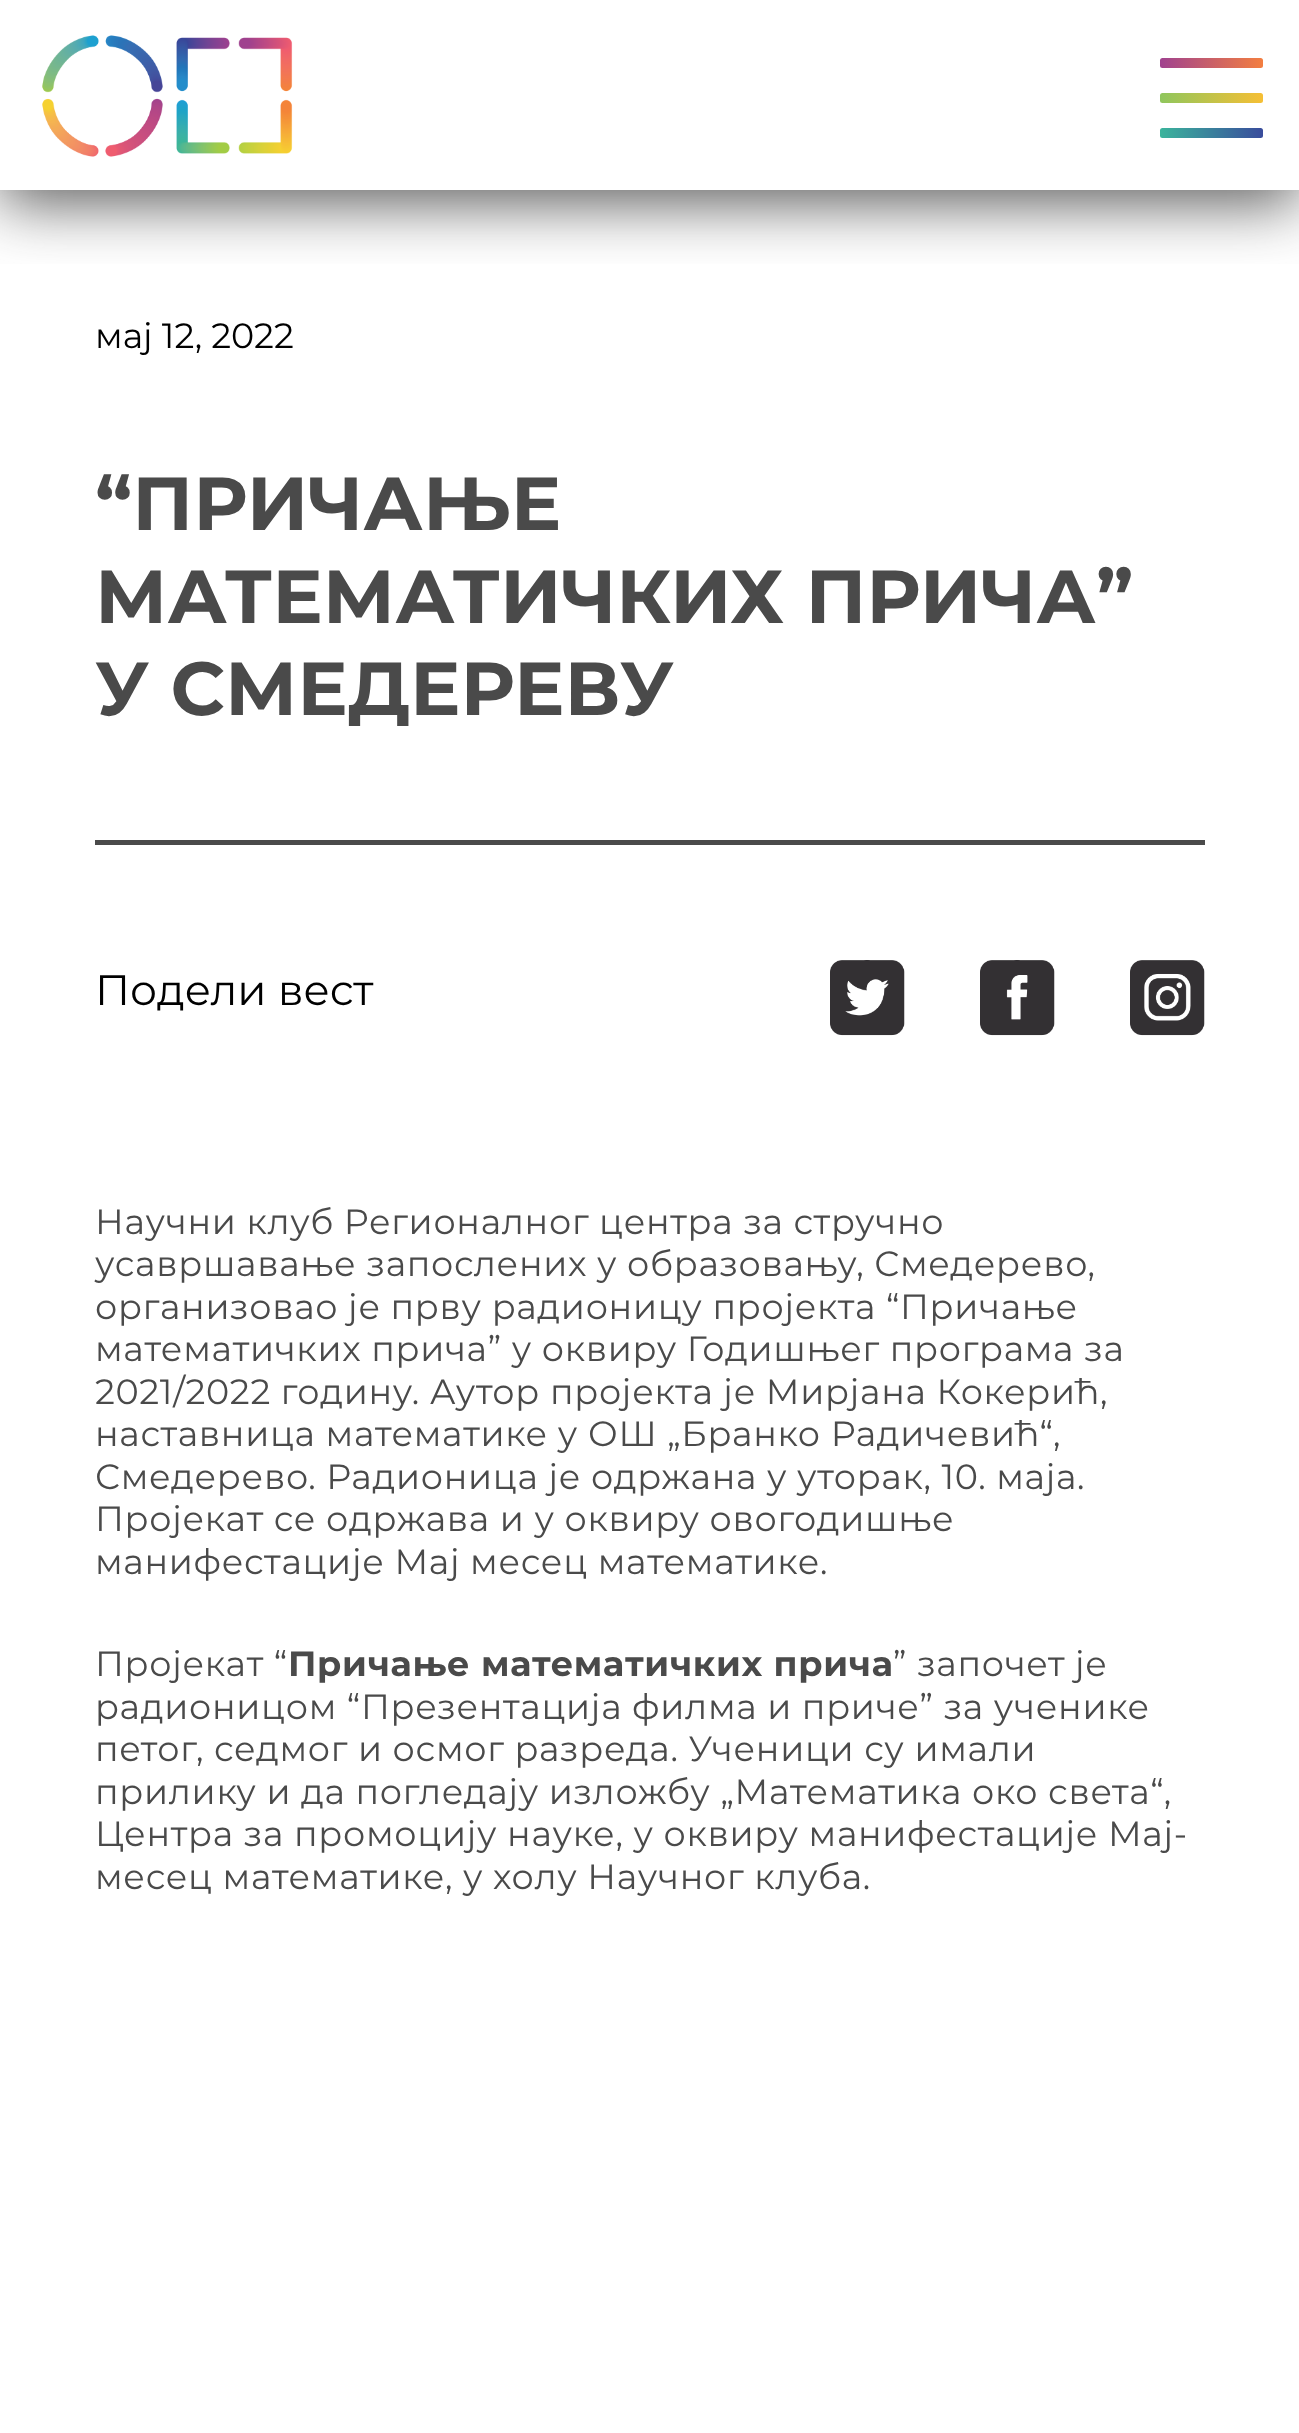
async function draw(canvas) {
  canvas.width = 1299
  canvas.height = 2433
  const ctx = canvas.getContext('2d')
  ctx.miterLimit = 4
  ctx.fontKerning = 'normal'
  async function loadImage(src) {
    const img = new Image()
    img.src = src
    await img.decode()
    return img
  }
  let gradient

  ctx.fillStyle = '#fff'
  ctx.fillRect(0, 0, 1299, 2433)
  ctx.save()
  ctx.beginPath()
  ctx.rect(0, 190, 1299, 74)
  ctx.clip()
  ctx.fillStyle = '#323232cc'
  ctx.filter = 'blur(31px)'
  ctx.beginPath()
  ctx.rect(0, 13, 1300, 190)
  ctx.fill()
  ctx.filter = 'none'
  ctx.restore()
  ctx.drawImage(await loadImage('image0.png'), 42, 35, 251, 122)
  gradient = ctx.createLinearGradient(1160, 63, 1263, 63)
  gradient.addColorStop(0, '#a0428f')
  gradient.addColorStop(1, '#f37e40')
  ctx.fillStyle = gradient
  ctx.beginPath()
  ctx.roundRect(1160, 58, 103, 10, 2.5)
  ctx.fill()
  gradient = ctx.createLinearGradient(1160, 98, 1263, 98)
  gradient.addColorStop(0, '#8fc65d')
  gradient.addColorStop(1, '#f6bf35')
  ctx.fillStyle = gradient
  ctx.beginPath()
  ctx.roundRect(1160, 93, 103, 10, 2.5)
  ctx.fill()
  gradient = ctx.createLinearGradient(1160, 133, 1263, 133)
  gradient.addColorStop(0, '#3bb49c')
  gradient.addColorStop(1, '#394c9c')
  ctx.fillStyle = gradient
  ctx.beginPath()
  ctx.roundRect(1160, 128, 103, 10, 2.5)
  ctx.fill()
  ctx.font = '35px Montserrat'
  ctx.fillStyle = '#000'
  ctx.fillText('мај 12, 2022', 95, 348)
  ctx.font = 'bold 75px Montserrat'
  ctx.fillStyle = '#4a4a4a'
  ctx.fillText('“ПРИЧАЊЕ', 95, 530)
  ctx.fillText('МАТЕМАТИЧКИХ ПРИЧА”', 95, 623)
  ctx.fillText('У СМЕДЕРЕВУ', 95, 715)
  ctx.fillRect(95, 840, 1110, 5)
  ctx.font = '42.5px Montserrat'
  ctx.fillStyle = '#000'
  ctx.fillText('Подели вест', 95, 1005)
  ctx.drawImage(await loadImage('image1.png'), 830, 960, 75, 76)
  ctx.drawImage(await loadImage('image2.png'), 980, 960, 75, 76)
  ctx.drawImage(await loadImage('image3.png'), 1130, 960, 75, 76)
  ctx.letterSpacing = '0.7px'
  ctx.font = '35px Montserrat'
  ctx.fillStyle = '#4a4a4a'
  ctx.fillText('Научни клуб Регионалног центра за стручно', 95, 1234)
  ctx.fillText('усавршавање запослених у образовању, Смедерево,', 95, 1276)
  ctx.fillText('организовао је прву радионицу пројекта “Причање', 95, 1319)
  ctx.fillText('математичких прича” у оквиру Годишњег програма за', 95, 1361)
  ctx.fillText('2021/2022 годину. Аутор пројекта је Мирјана Кокерић,', 95, 1404)
  ctx.fillText('наставница математике у ОШ „Бранко Радичевић“,', 95, 1446)
  ctx.fillText('Смедерево. Радионица је одржана у уторак, 10. маја.', 95, 1489)
  ctx.fillText('Пројекат се одржава и у оквиру овогодишње', 95, 1531)
  ctx.fillText('манифестације Мај месец математике.', 95, 1574)
  ctx.fillText('Пројекат “', 95, 1676)
  ctx.font = 'bold 35px Montserrat'
  ctx.fillText('Причање математичких прича', 288, 1676)
  ctx.font = '35px Montserrat'
  ctx.fillText('” започет је', 893, 1676)
  ctx.fillText('радионицом “Презентација филма и приче” за ученике', 95, 1719)
  ctx.fillText('петог, седмог и осмог разреда. Ученици су имали', 95, 1761)
  ctx.fillText('прилику и да погледају изложбу „Математика око света“,', 95, 1804)
  ctx.fillText('Центра за промоцију науке, у оквиру манифестације Мај-', 95, 1846)
  ctx.fillText('месец математике, у холу Научног клуба.', 95, 1889)
}

draw(document.querySelector('canvas'))
